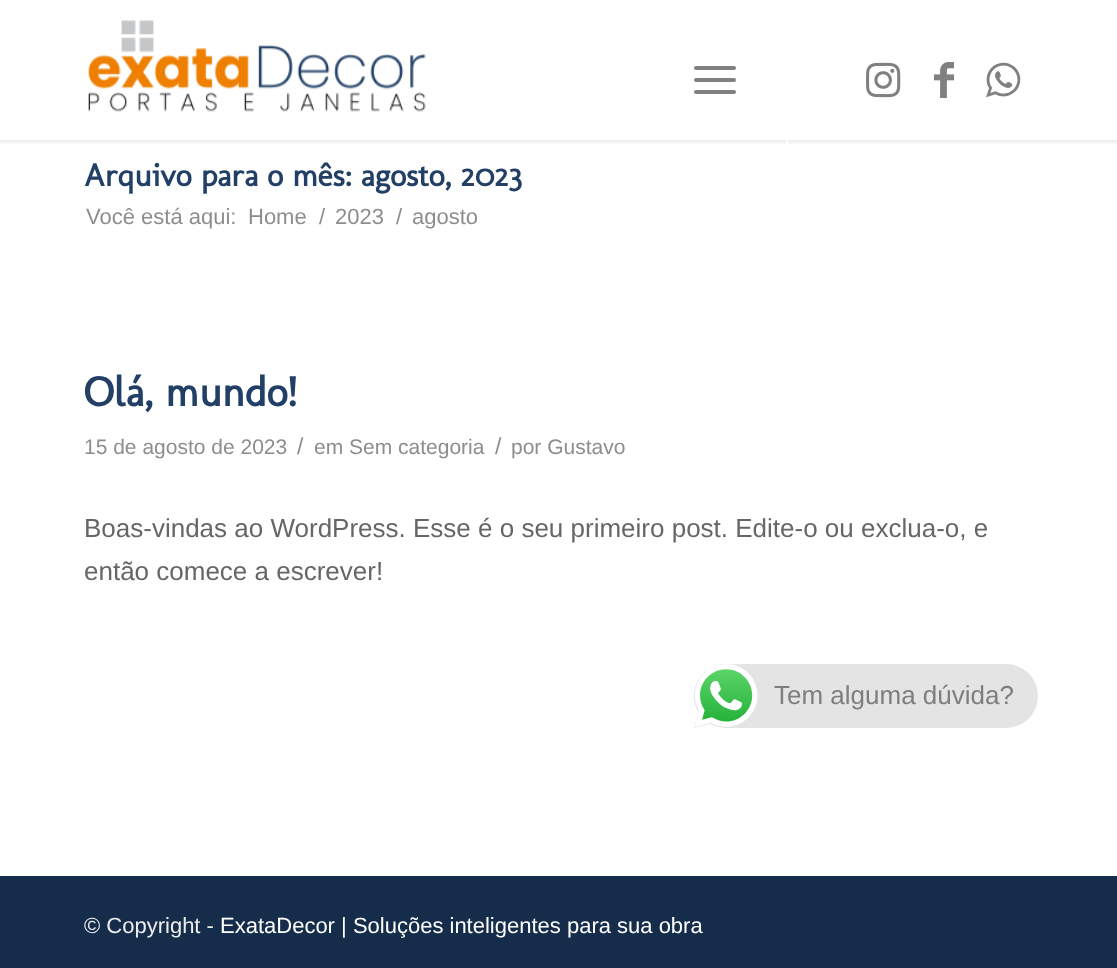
async function draw(canvas) {
  canvas.width = 1117
  canvas.height = 968
  const ctx = canvas.getContext('2d')
  ctx.miterLimit = 4
  ctx.fontKerning = 'normal'
  async function loadImage(src) {
    const img = new Image()
    img.src = src
    await img.decode()
    return img
  }

  ctx.fillStyle = '#fff'
  ctx.fillRect(0, 0, 1117, 968)
  ctx.save()
  ctx.beginPath()
  ctx.rect(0, 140, 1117, 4)
  ctx.clip()
  ctx.fillStyle = '#0000001a'
  ctx.filter = 'blur(2px)'
  ctx.beginPath()
  ctx.rect(-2, -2, 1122, 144)
  ctx.fill()
  ctx.filter = 'none'
  ctx.restore()
  ctx.drawImage(await loadImage('image0.png'), 88, 20, 338, 92)
  ctx.fillRect(786, 140, 2, 5)
  ctx.fillStyle = '#808080'
  ctx.beginPath()
  ctx.roundRect(694, 78, 42, 4, 2)
  ctx.fill()
  ctx.beginPath()
  ctx.roundRect(694, 66, 42, 4, 2)
  ctx.fill()
  ctx.beginPath()
  ctx.roundRect(694, 90, 42, 4, 2)
  ctx.fill()
  ctx.drawImage(await loadImage('image1.png'), 866, 62, 35, 36)
  ctx.drawImage(await loadImage('image2.png'), 934, 62, 20, 36)
  ctx.drawImage(await loadImage('image3.png'), 986, 62, 35, 36)
  ctx.font = 'bold 32px Molengo'
  ctx.fillStyle = '#223f66'
  ctx.fillText('Arquivo para o mês: agosto, 2023', 84, 186)
  ctx.font = '22px Liberation Sans'
  ctx.fillStyle = '#8d8d8d'
  ctx.fillText('Você está aqui:', 86, 224)
  ctx.fillText('Home', 248, 224)
  ctx.fillText('/', 319, 224)
  ctx.fillText('2023', 335, 224)
  ctx.fillText('/', 396, 224)
  ctx.fillText('agosto', 412, 224)
  ctx.font = 'bold 42px Molengo'
  ctx.fillStyle = '#223f66'
  ctx.fillText('Olá, mundo!', 84, 406)
  ctx.font = '21px Liberation Sans'
  ctx.fillStyle = '#8d8d8d'
  ctx.fillText('15 de agosto de 2023', 84, 454)
  ctx.font = '23px Liberation Sans'
  ctx.fillText('/', 297, 454)
  ctx.font = '21px Liberation Sans'
  ctx.fillText('em Sem categoria', 314, 454)
  ctx.font = '23px Liberation Sans'
  ctx.fillText('/', 495, 454)
  ctx.font = '21px Liberation Sans'
  ctx.fillText('por Gustavo', 511, 454)
  ctx.font = '26px Liberation Sans'
  ctx.fillStyle = '#666'
  ctx.fillText('Boas-vindas ao WordPress. Esse é o seu primeiro post. Edite-o ou exclua-o, e', 84, 537)
  ctx.fillText('então comece a escrever!', 84, 580)
  ctx.fillStyle = '#152d4a'
  ctx.fillRect(0, 876, 1117, 92)
  ctx.font = '22px Liberation Sans'
  ctx.fillStyle = '#eee'
  ctx.fillText('© Copyright -', 84, 933)
  ctx.fillStyle = '#fff'
  ctx.fillText('ExataDecor | Soluções inteligentes para sua obra', 220, 933)
  ctx.fillStyle = '#e4e4e4'
  ctx.beginPath()
  ctx.roundRect(694, 664, 344, 64, 32)
  ctx.fill()
  ctx.drawImage(await loadImage('image4.png'), 694, 664, 64, 64)
  ctx.font = '26px Liberation Sans'
  ctx.fillStyle = '#7f7d7d'
  ctx.fillText('Tem alguma dúvida?', 774, 704)
}

draw(document.querySelector('canvas'))
